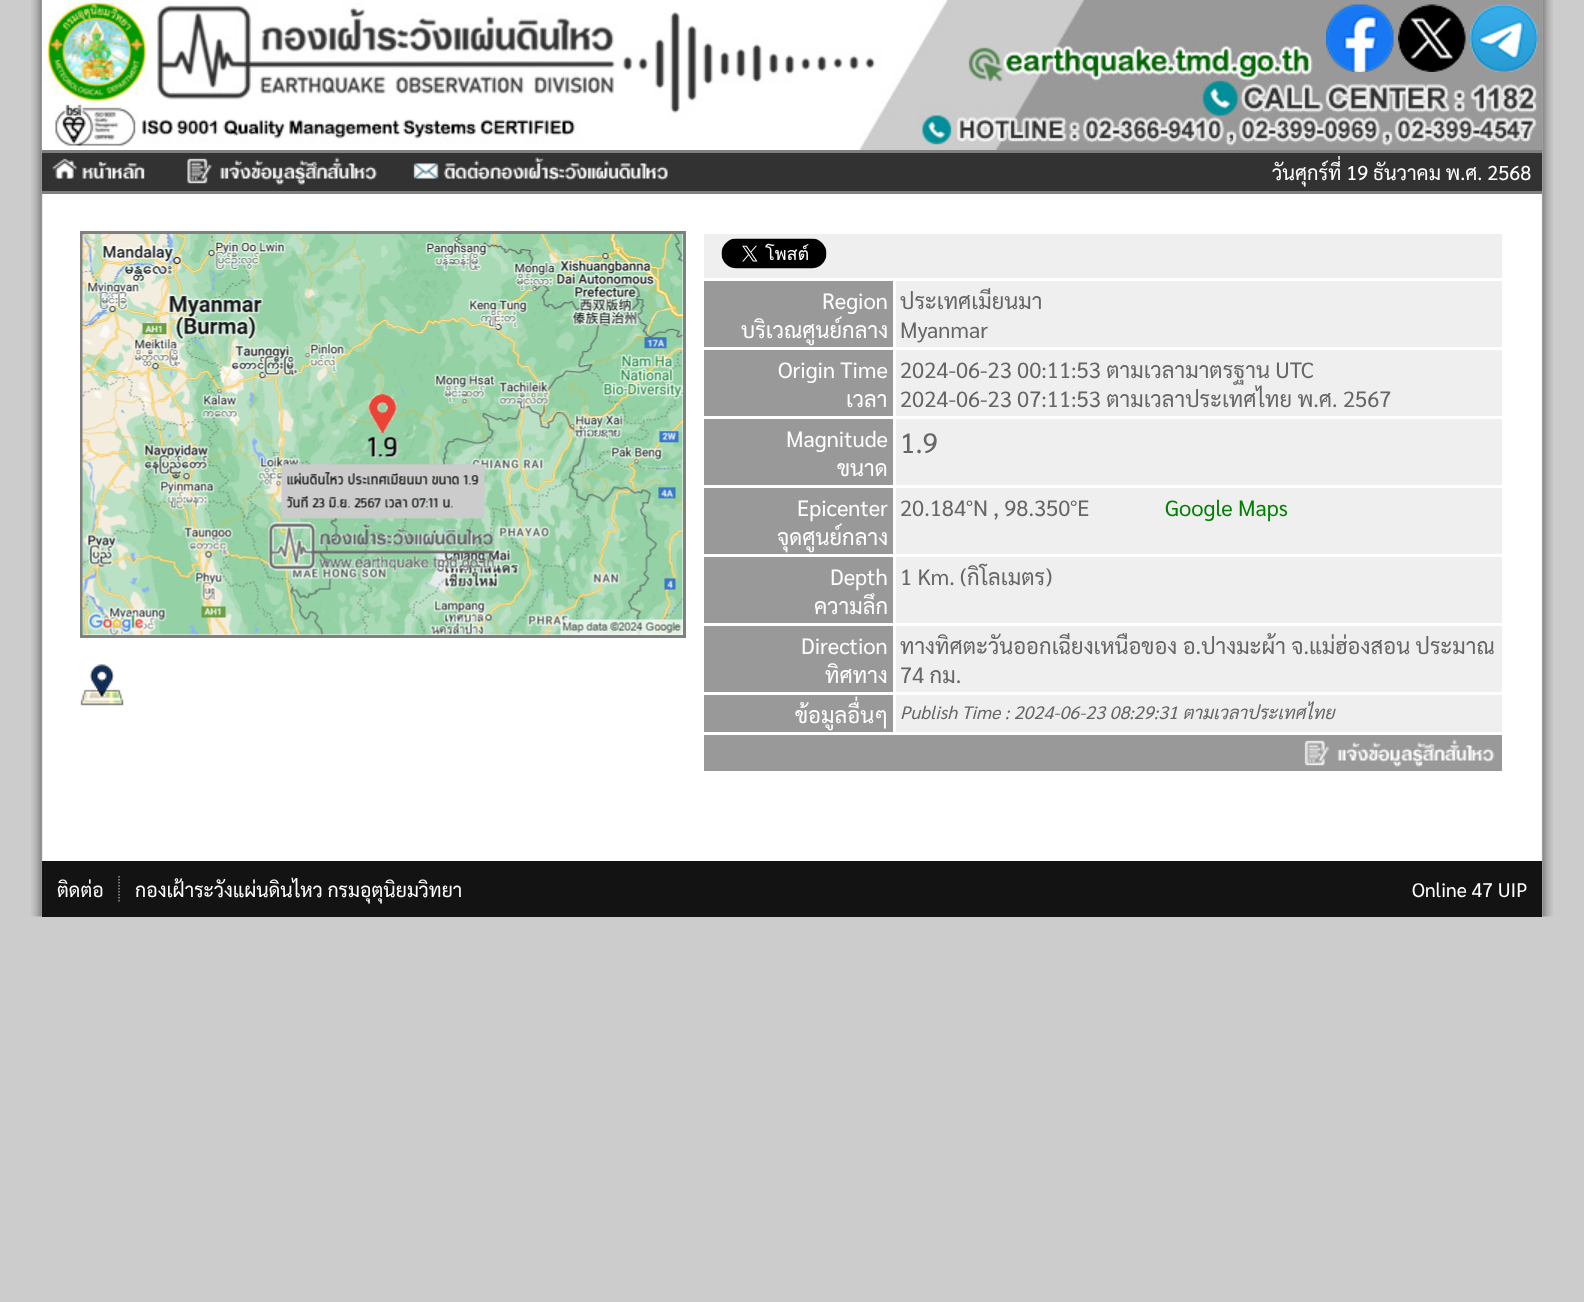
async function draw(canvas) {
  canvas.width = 1584
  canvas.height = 1302
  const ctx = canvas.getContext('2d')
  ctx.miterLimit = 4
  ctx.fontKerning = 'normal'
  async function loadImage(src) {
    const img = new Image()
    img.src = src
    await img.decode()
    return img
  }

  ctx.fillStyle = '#ccc'
  ctx.fillRect(0, 0, 1584, 1302)
  ctx.drawImage(await loadImage('image0.png'), 31, 0, 1522, 917)
  ctx.drawImage(await loadImage('image1.png'), 42, 0, 1500, 150)
  ctx.drawImage(await loadImage('image2.png'), 1326, 4, 68, 68)
  ctx.drawImage(await loadImage('image3.png'), 1398, 4, 68, 68)
  ctx.drawImage(await loadImage('image4.png'), 1470, 4, 68, 68)
  ctx.fillStyle = '#323232'
  ctx.fillRect(42, 153, 1500, 38)
  ctx.fillStyle = '#808080'
  ctx.fillRect(42, 150, 1500, 3)
  ctx.fillRect(42, 191, 1500, 3)
  ctx.drawImage(await loadImage('image5.png'), 52, 158, 93, 21)
  ctx.drawImage(await loadImage('image6.png'), 187, 157, 190, 28)
  ctx.drawImage(await loadImage('image7.png'), 413, 157, 255, 24)
  ctx.font = '20px Sarabun'
  ctx.fillStyle = '#fff'
  ctx.fillText('วันศุกร์ที่ 19 ธันวาคม พ.ศ. 2568', 1272, 180)
  ctx.strokeStyle = '#808080'
  ctx.lineWidth = 3
  ctx.strokeRect(81.5, 232.5, 603, 404)
  ctx.drawImage(await loadImage('image8.png'), 82, 234, 601, 401)
  ctx.drawImage(await loadImage('image9.png'), 80, 664, 44, 42)
  ctx.fillStyle = '#efefef'
  ctx.fillRect(704, 234, 798, 44)
  ctx.drawImage(await loadImage('image10.png'), 721, 238, 106, 31)
  ctx.fillStyle = '#999'
  ctx.fillRect(704, 281, 189, 66)
  ctx.font = '22px Sarabun'
  ctx.fillStyle = '#fff'
  ctx.fillText('Region', 822, 309)
  ctx.fillText('บริเวณศูนย์กลาง', 741, 338)
  ctx.fillStyle = '#efefef'
  ctx.fillRect(896, 281, 606, 66)
  ctx.fillStyle = '#666'
  ctx.fillText('ประเทศเมียนมา', 900, 309)
  ctx.fillText('Myanmar', 900, 338)
  ctx.fillStyle = '#999'
  ctx.fillRect(704, 350, 189, 66)
  ctx.fillStyle = '#fff'
  ctx.fillText('Origin Time', 778, 378)
  ctx.fillText('เวลา', 846, 407)
  ctx.fillStyle = '#efefef'
  ctx.fillRect(896, 350, 606, 66)
  ctx.fillStyle = '#666'
  ctx.fillText('2024-06-23 00:11:53 ตามเวลามาตรฐาน UTC', 900, 378)
  ctx.fillText('2024-06-23 07:11:53 ตามเวลาประเทศไทย พ.ศ. 2567', 900, 407)
  ctx.fillStyle = '#999'
  ctx.fillRect(704, 419, 189, 66)
  ctx.fillStyle = '#fff'
  ctx.fillText('Magnitude', 786, 447)
  ctx.fillText('ขนาด', 837, 476)
  ctx.fillStyle = '#efefef'
  ctx.fillRect(896, 419, 606, 66)
  ctx.font = '28px Sarabun'
  ctx.fillStyle = '#666'
  ctx.fillText('1.9', 900, 453)
  ctx.fillStyle = '#999'
  ctx.fillRect(704, 488, 189, 66)
  ctx.font = '22px Sarabun'
  ctx.fillStyle = '#fff'
  ctx.fillText('Epicenter', 797, 516)
  ctx.fillText('จุดศูนย์กลาง', 777, 545)
  ctx.fillStyle = '#efefef'
  ctx.fillRect(896, 488, 606, 66)
  ctx.fillStyle = '#666'
  ctx.fillText('20.184°N , 98.350°E', 900, 516)
  ctx.fillStyle = '#008000'
  ctx.fillText('Google Maps', 1165, 516)
  ctx.fillStyle = '#999'
  ctx.fillRect(704, 557, 189, 66)
  ctx.fillStyle = '#fff'
  ctx.fillText('Depth', 830, 585)
  ctx.fillText('ความลึก', 814, 614)
  ctx.fillStyle = '#efefef'
  ctx.fillRect(896, 557, 606, 66)
  ctx.fillStyle = '#666'
  ctx.fillText('1 Km. (กิโลเมตร)', 900, 585)
  ctx.fillStyle = '#999'
  ctx.fillRect(704, 626, 189, 66)
  ctx.fillStyle = '#fff'
  ctx.fillText('Direction', 801, 654)
  ctx.fillText('ทิศทาง', 825, 683)
  ctx.fillStyle = '#efefef'
  ctx.fillRect(896, 626, 606, 66)
  ctx.fillStyle = '#666'
  ctx.fillText('ทางทิศตะวันออกเฉียงเหนือของ อ.ปางมะผ้า จ.แม่ฮ่องสอน ประมาณ', 900, 654)
  ctx.fillText('74 กม.', 900, 683)
  ctx.fillStyle = '#999'
  ctx.fillRect(704, 695, 189, 37)
  ctx.fillStyle = '#fff'
  ctx.fillText('ข้อมูลอื่นๆ', 795, 723)
  ctx.fillStyle = '#efefef'
  ctx.fillRect(896, 695, 606, 37)
  ctx.font = 'italic 18px Sarabun'
  ctx.fillStyle = '#666'
  ctx.fillText('Publish Time : 2024-06-23 08:29:31 ตามเวลาประเทศไทย', 900, 719)
  ctx.fillStyle = '#999'
  ctx.fillRect(704, 735, 798, 36)
  ctx.drawImage(await loadImage('image11.png'), 1304, 739, 191, 28)
  ctx.fillStyle = '#131313'
  ctx.fillRect(42, 861, 1500, 56)
  ctx.font = '19.5px Sarabun'
  ctx.fillStyle = '#fff'
  ctx.fillText('ติดต่อ', 57, 897)
  ctx.beginPath()
  ctx.moveTo(119, 876)
  ctx.lineTo(119, 901.5)
  ctx.strokeStyle = '#999'
  ctx.lineWidth = 1.5
  ctx.setLineDash([1.5, 1.5])
  ctx.stroke()
  ctx.fillText('กองเฝ้าระวังแผ่นดินไหว กรมอุตุนิยมวิทยา', 135, 897)
  ctx.fillText('Online 47 UIP', 1412, 897)
}

draw(document.querySelector('canvas'))
